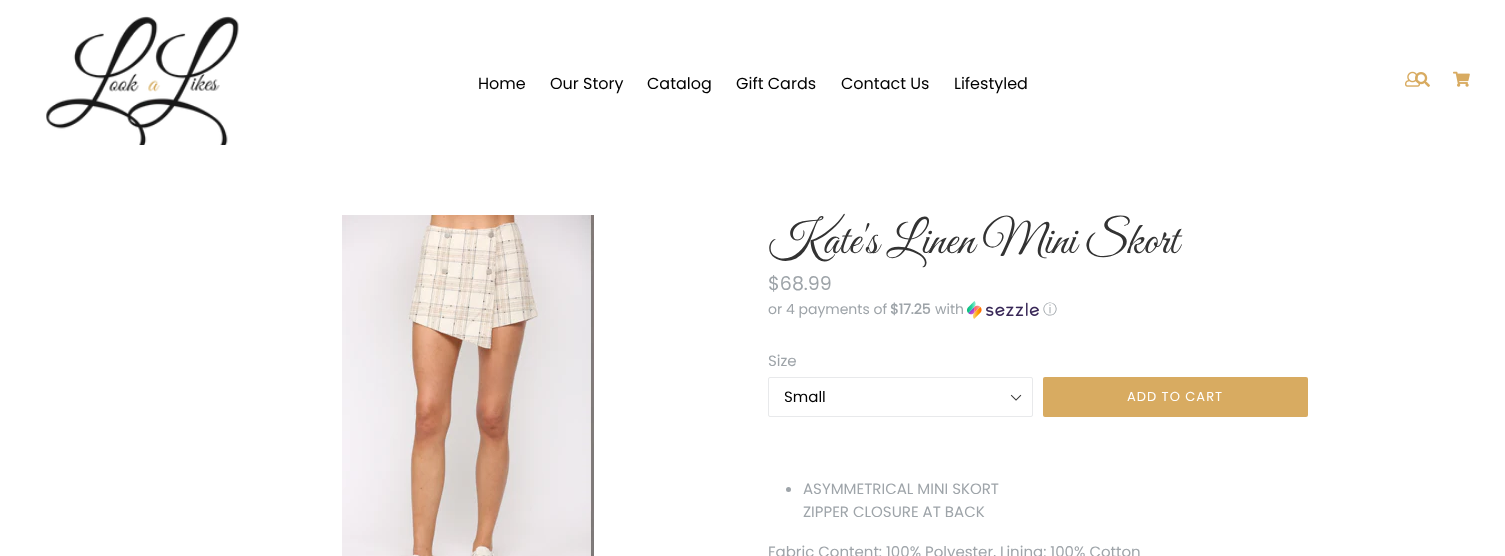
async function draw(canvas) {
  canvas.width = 1505
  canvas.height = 556
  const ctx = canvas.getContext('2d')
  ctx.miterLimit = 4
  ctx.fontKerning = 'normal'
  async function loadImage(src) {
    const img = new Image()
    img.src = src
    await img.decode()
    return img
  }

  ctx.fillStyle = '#fff'
  ctx.fillRect(0, 0, 1505, 556)
  ctx.drawImage(await loadImage('image0.png'), 46, 16, 193, 129)
  ctx.font = '16px Poppins'
  ctx.fillStyle = '#000'
  ctx.fillText('Home', 478, 89)
  ctx.fillText('Our Story', 550, 89)
  ctx.fillText('Catalog', 647, 89)
  ctx.fillText('Gift Cards', 736, 89)
  ctx.fillText('Contact Us', 841, 89)
  ctx.fillText('Lifestyled', 954, 89)
  ctx.drawImage(await loadImage('image1.png'), 1405, 71, 15, 16)
  ctx.drawImage(await loadImage('image2.png'), 1415, 72, 15, 15)
  ctx.drawImage(await loadImage('image3.png'), 1453, 71, 17, 16)
  ctx.drawImage(await loadImage('image4.png'), 342, 215, 252, 341)
  ctx.font = '46px Great Vibes'
  ctx.fillStyle = '#333'
  ctx.fillText('Kate\'s Linen Mini Skort', 768, 253)
  ctx.font = '19px Poppins'
  ctx.fillStyle = '#9ea4a9'
  ctx.fillText('$68.99', 768, 290)
  ctx.font = '14px Poppins'
  ctx.fillText('or 4 payments of', 768, 314)
  ctx.font = 'bold 14px Poppins'
  ctx.fillText('$17.25', 890, 314)
  ctx.font = '14px Poppins'
  ctx.fillText('with', 935, 314)
  ctx.drawImage(await loadImage('image5.png'), 967, 301, 72, 18)
  ctx.font = '500 14px WenQuanYi Zen Hei'
  ctx.fillText('ⓘ', 1043, 314)
  ctx.font = '15px Poppins'
  ctx.fillText('Size', 768, 366)
  ctx.drawImage(await loadImage('image6.png'), 1010, 394, 12, 7)
  ctx.beginPath()
  ctx.roundRect(768.5, 377.5, 264, 39, 1.5)
  ctx.strokeStyle = '#e8e9eb'
  ctx.stroke()
  ctx.fillStyle = '#000'
  ctx.fillText('Small', 784, 402)
  ctx.fillStyle = '#d8ab61'
  ctx.beginPath()
  ctx.roundRect(1043, 377, 265, 40, 2)
  ctx.fill()
  ctx.letterSpacing = '1px'
  ctx.font = '13px Poppins'
  ctx.fillStyle = '#fff'
  ctx.fillText('ADD TO CART', 1127, 401)
  ctx.fillStyle = '#9ea4a9'
  ctx.beginPath()
  ctx.arc(788.5, 489.5, 2.5, 0, 2 * Math.PI)
  ctx.fill()
  ctx.letterSpacing = '0px'
  ctx.font = '15px Poppins'
  ctx.fillText('ASYMMETRICAL MINI SKORT', 803, 494)
  ctx.fillText('ZIPPER CLOSURE AT BACK', 803, 517)
  ctx.fillText('Fabric Content: 100% Polyester, Lining: 100% Cotton', 768, 557)
}

draw(document.querySelector('canvas'))
